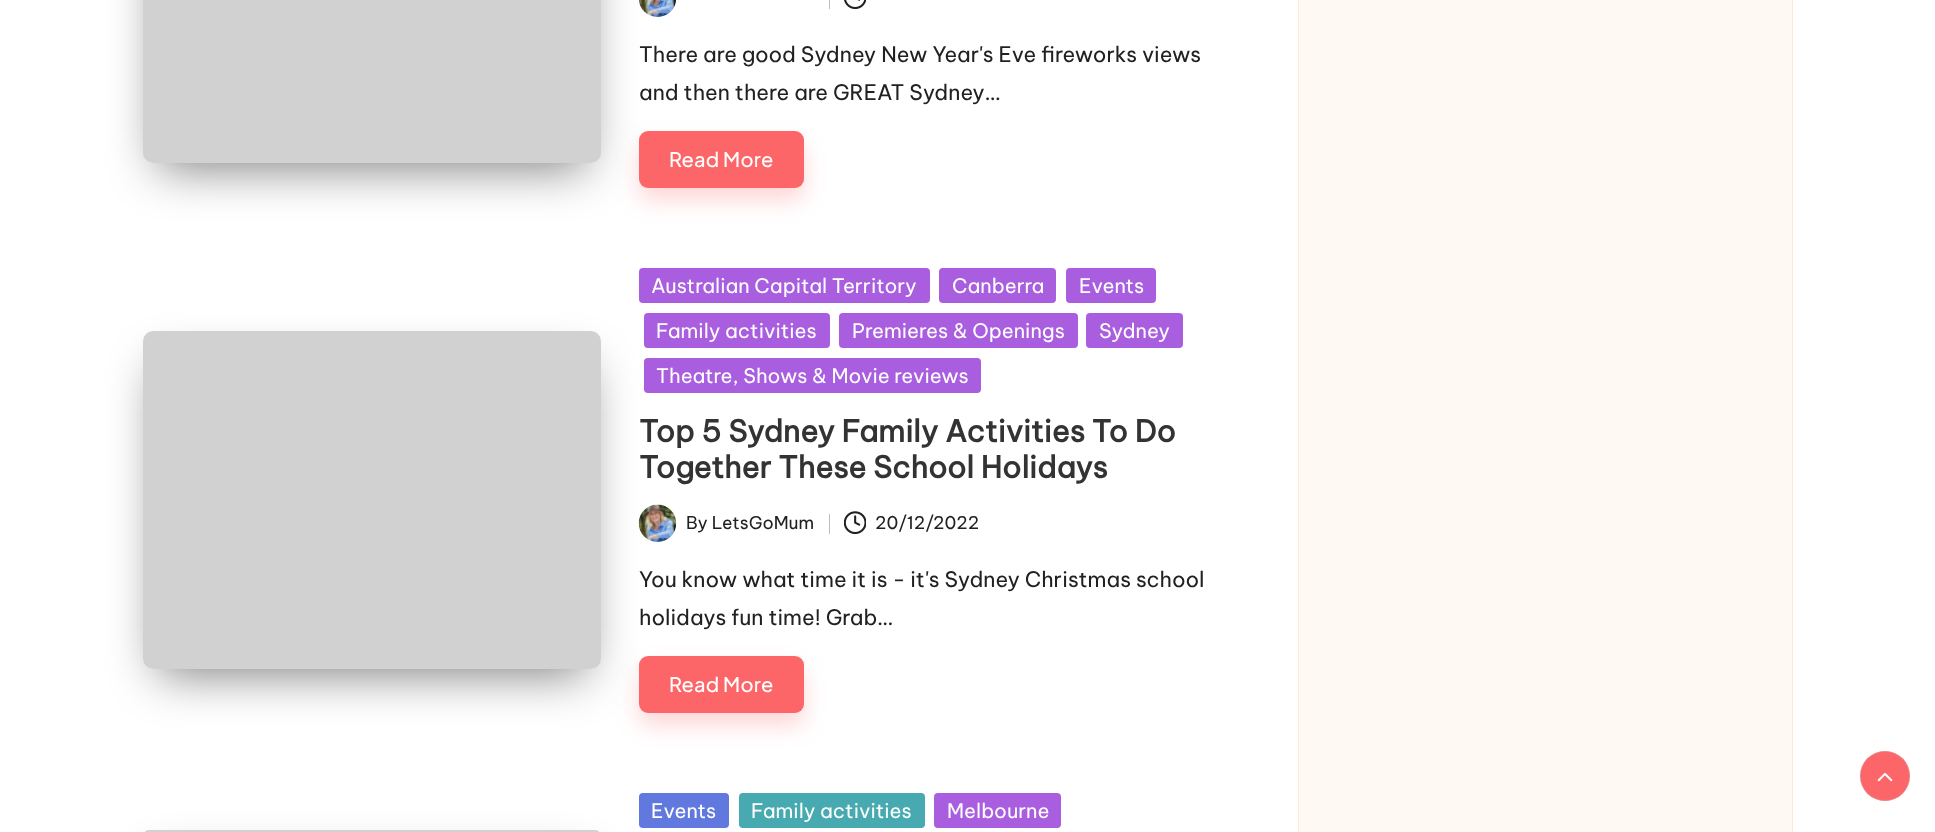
async function draw(canvas) {
  canvas.width = 1935
  canvas.height = 832
  const ctx = canvas.getContext('2d')
  ctx.miterLimit = 4
  ctx.fontKerning = 'normal'
  async function loadImage(src) {
    const img = new Image()
    img.src = src
    await img.decode()
    return img
  }

  ctx.fillStyle = '#fff'
  ctx.fillRect(0, 0, 1935, 832)
  ctx.drawImage(await loadImage('image0.png'), 639, 0, 37, 17)
  ctx.save()
  ctx.beginPath()
  ctx.moveTo(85, 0)
  ctx.lineTo(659, 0)
  ctx.lineTo(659, 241)
  ctx.lineTo(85, 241)
  ctx.closePath()
  ctx.moveTo(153, -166)
  ctx.lineTo(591, -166)
  ctx.bezierCurveTo(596.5, -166, 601, -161.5, 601, -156)
  ctx.lineTo(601, 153)
  ctx.bezierCurveTo(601, 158.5, 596.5, 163, 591, 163)
  ctx.lineTo(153, 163)
  ctx.bezierCurveTo(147.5, 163, 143, 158.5, 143, 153)
  ctx.lineTo(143, -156)
  ctx.bezierCurveTo(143, -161.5, 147.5, -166, 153, -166)
  ctx.closePath()
  ctx.clip('evenodd')
  ctx.fillStyle = '#00000080'
  ctx.filter = 'blur(24px)'
  ctx.beginPath()
  ctx.rect(158, -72, 428, 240)
  ctx.fill()
  ctx.filter = 'none'
  ctx.restore()
  ctx.fillStyle = '#0000002e'
  ctx.beginPath()
  ctx.roundRect(143, -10, 458, 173, 10)
  ctx.fill()
  ctx.fillStyle = '#bfbfbf'
  ctx.fillRect(829, 0, 1, 9)
  ctx.drawImage(await loadImage('image1.png'), 844, 0, 22, 9)
  ctx.font = '21.25px Be Vietnam Pro'
  ctx.fillStyle = '#212121'
  ctx.fillText('There are good Sydney New Year\'s Eve fireworks views', 639, 62)
  ctx.fillText('and then there are GREAT Sydney…', 639, 100)
  ctx.fillStyle = '#fc666845'
  ctx.filter = 'blur(11px)'
  ctx.beginPath()
  ctx.roundRect(639, 144, 165, 56, 9)
  ctx.fill()
  ctx.filter = 'none'
  ctx.fillStyle = '#fc6668'
  ctx.beginPath()
  ctx.roundRect(639, 131, 165, 57, 9)
  ctx.fill()
  ctx.letterSpacing = '0.25px'
  ctx.font = '500 20px Plus Jakarta Sans'
  ctx.fillStyle = '#fff'
  ctx.fillText('Read More', 669, 167)
  ctx.fillStyle = '#a95edf'
  ctx.beginPath()
  ctx.roundRect(639, 268, 291, 35, 4)
  ctx.fill()
  ctx.beginPath()
  ctx.roundRect(644, 313, 186, 35, 4)
  ctx.fill()
  ctx.beginPath()
  ctx.roundRect(644, 358, 337, 35, 4)
  ctx.fill()
  ctx.drawImage(await loadImage('image2.png'), 638, 504, 39, 38)
  ctx.save()
  ctx.beginPath()
  ctx.moveTo(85, 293)
  ctx.lineTo(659, 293)
  ctx.lineTo(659, 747)
  ctx.lineTo(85, 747)
  ctx.closePath()
  ctx.moveTo(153, 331)
  ctx.lineTo(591, 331)
  ctx.bezierCurveTo(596.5, 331, 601, 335.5, 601, 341)
  ctx.lineTo(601, 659)
  ctx.bezierCurveTo(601, 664.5, 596.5, 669, 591, 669)
  ctx.lineTo(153, 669)
  ctx.bezierCurveTo(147.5, 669, 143, 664.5, 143, 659)
  ctx.lineTo(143, 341)
  ctx.bezierCurveTo(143, 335.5, 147.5, 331, 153, 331)
  ctx.closePath()
  ctx.clip('evenodd')
  ctx.fillStyle = '#00000080'
  ctx.filter = 'blur(24px)'
  ctx.beginPath()
  ctx.rect(158, 366, 428, 308)
  ctx.fill()
  ctx.filter = 'none'
  ctx.restore()
  ctx.fillStyle = '#0000002e'
  ctx.beginPath()
  ctx.roundRect(143, 331, 458, 338, 10)
  ctx.fill()
  ctx.letterSpacing = '0px'
  ctx.font = '20px Be Vietnam Pro'
  ctx.fillStyle = '#fff'
  ctx.fillText('Australian Capital Territory', 651, 293)
  ctx.fillStyle = '#a95edf'
  ctx.beginPath()
  ctx.roundRect(939, 268, 117, 35, 4)
  ctx.fill()
  ctx.fillStyle = '#fff'
  ctx.fillText('Canberra', 952, 293)
  ctx.fillStyle = '#a95edf'
  ctx.beginPath()
  ctx.roundRect(1066, 268, 90, 35, 4)
  ctx.fill()
  ctx.fillStyle = '#fff'
  ctx.fillText('Events', 1079, 293)
  ctx.fillText('Family activities', 656, 338)
  ctx.fillStyle = '#a95edf'
  ctx.beginPath()
  ctx.roundRect(839, 313, 239, 35, 4)
  ctx.fill()
  ctx.fillStyle = '#fff'
  ctx.fillText('Premieres & Openings', 852, 338)
  ctx.fillStyle = '#a95edf'
  ctx.beginPath()
  ctx.roundRect(1086, 313, 97, 35, 4)
  ctx.fill()
  ctx.fillStyle = '#fff'
  ctx.fillText('Sydney', 1099, 338)
  ctx.fillText('Theatre, Shows & Movie reviews', 656, 383)
  ctx.font = 'bold 30px Be Vietnam Pro'
  ctx.fillStyle = '#333'
  ctx.fillText('Top 5 Sydney Family Activities To Do', 639, 442)
  ctx.fillText('Together These School Holidays', 639, 478)
  ctx.font = '17.5px Be Vietnam Pro'
  ctx.fillStyle = '#212121'
  ctx.fillText('By LetsGoMum', 686, 529)
  ctx.fillStyle = '#bfbfbf'
  ctx.fillRect(829, 514, 1, 20)
  ctx.drawImage(await loadImage('image3.png'), 844, 511, 22, 23)
  ctx.fillStyle = '#212121'
  ctx.fillText('20/12/2022', 875, 529)
  ctx.font = '21.25px Be Vietnam Pro'
  ctx.fillText('You know what time it is - it\'s Sydney Christmas school', 639, 587)
  ctx.fillText('holidays fun time! Grab…', 639, 625)
  ctx.fillStyle = '#fc666845'
  ctx.filter = 'blur(11px)'
  ctx.beginPath()
  ctx.roundRect(639, 669, 165, 56, 9)
  ctx.fill()
  ctx.filter = 'none'
  ctx.fillStyle = '#fc6668'
  ctx.beginPath()
  ctx.roundRect(639, 656, 165, 57, 9)
  ctx.fill()
  ctx.letterSpacing = '0.25px'
  ctx.font = '500 20px Plus Jakarta Sans'
  ctx.fillStyle = '#fff'
  ctx.fillText('Read More', 669, 692)
  ctx.fillStyle = '#6178df'
  ctx.beginPath()
  ctx.roundRect(639, 793, 90, 35, 4)
  ctx.fill()
  ctx.fillStyle = '#00000080'
  ctx.filter = 'blur(24px)'
  ctx.beginPath()
  ctx.rect(158, 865, 428, 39)
  ctx.fill()
  ctx.filter = 'none'
  ctx.fillStyle = '#d1d1d1'
  ctx.beginPath()
  ctx.roundRect(143, 830, 458, 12, 10)
  ctx.fill()
  ctx.letterSpacing = '0px'
  ctx.font = '20px Be Vietnam Pro'
  ctx.fillStyle = '#fff'
  ctx.fillText('Events', 651, 818)
  ctx.fillStyle = '#48aab1'
  ctx.beginPath()
  ctx.roundRect(739, 793, 186, 35, 4)
  ctx.fill()
  ctx.fillStyle = '#fff'
  ctx.fillText('Family activities', 751, 818)
  ctx.fillStyle = '#a95edf'
  ctx.beginPath()
  ctx.roundRect(934, 793, 127, 35, 4)
  ctx.fill()
  ctx.fillStyle = '#fff'
  ctx.fillText('Melbourne', 947, 818)
  ctx.fillStyle = '#fff9f3'
  ctx.beginPath()
  ctx.rect(1298.5, -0.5, 494, 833)
  ctx.fill()
  ctx.strokeStyle = '#ffe7d2'
  ctx.stroke()
  ctx.fillStyle = '#fc6668'
  ctx.beginPath()
  ctx.arc(1885, 776, 25, 0, 2 * Math.PI)
  ctx.fill()
  ctx.beginPath()
  ctx.arc(1885, 776, 24.5, 0, 2 * Math.PI)
  ctx.strokeStyle = '#bebebe4d'
  ctx.stroke()
  ctx.drawImage(await loadImage('image4.png'), 1877, 772, 16, 10)
}

draw(document.querySelector('canvas'))
